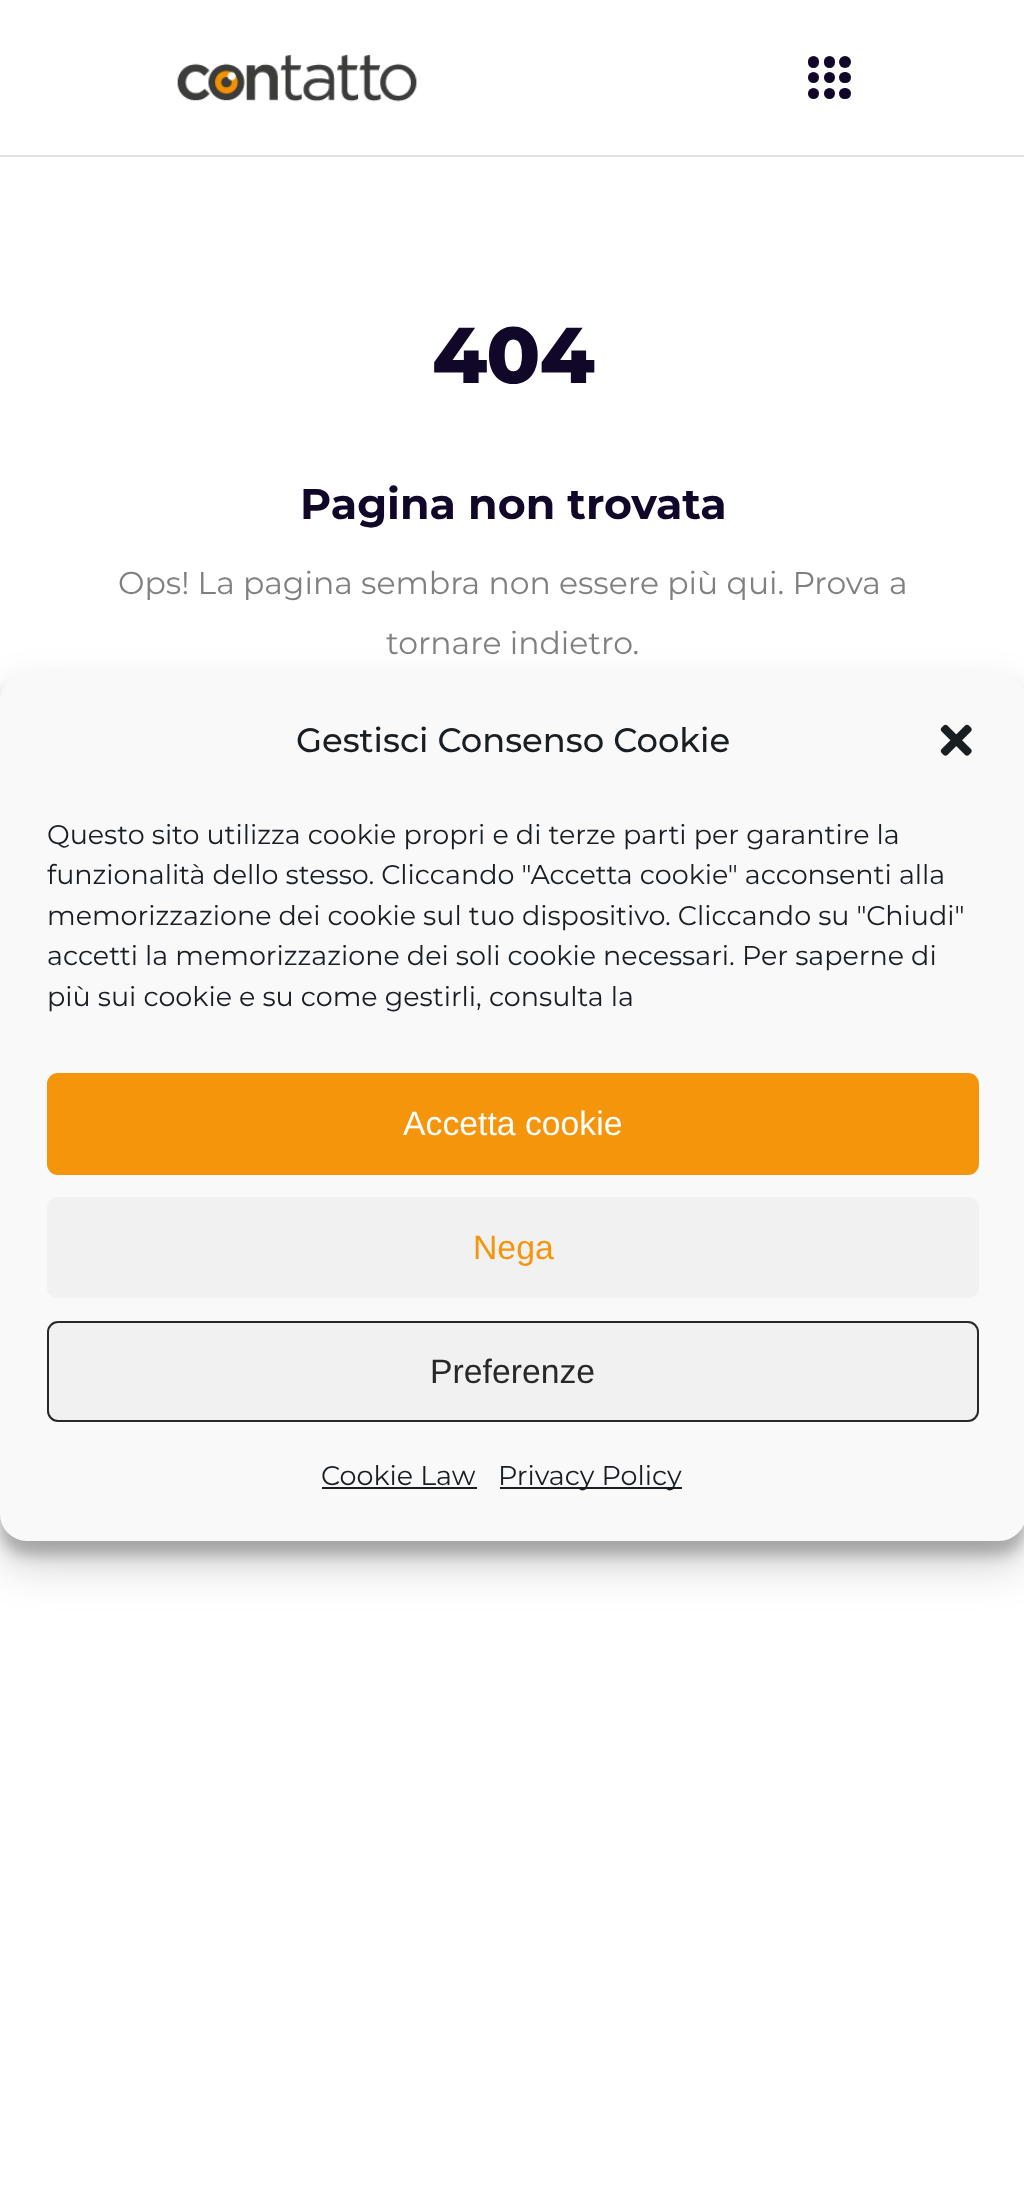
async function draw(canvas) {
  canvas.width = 1024
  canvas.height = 2212
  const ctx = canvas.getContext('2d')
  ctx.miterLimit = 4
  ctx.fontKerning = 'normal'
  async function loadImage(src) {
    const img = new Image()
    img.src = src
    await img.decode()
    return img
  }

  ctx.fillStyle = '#fff'
  ctx.fillRect(0, 0, 1024, 2212)
  ctx.fillStyle = '#e1e1e1'
  ctx.fillRect(0, 155, 1024, 2)
  ctx.drawImage(await loadImage('image0.png'), 177, 54, 240, 48)
  ctx.fillStyle = '#110729'
  ctx.beginPath()
  ctx.roundRect(808, 56, 11, 12, 5.5)
  ctx.fill()
  ctx.beginPath()
  ctx.roundRect(824, 56, 11, 12, 5.5)
  ctx.fill()
  ctx.beginPath()
  ctx.arc(845, 62, 6, 0, 2 * Math.PI)
  ctx.fill()
  ctx.beginPath()
  ctx.arc(813.5, 77.5, 5.5, 0, 2 * Math.PI)
  ctx.fill()
  ctx.beginPath()
  ctx.arc(829.5, 77.5, 5.5, 0, 2 * Math.PI)
  ctx.fill()
  ctx.beginPath()
  ctx.roundRect(839, 72, 12, 11, 5.5)
  ctx.fill()
  ctx.beginPath()
  ctx.arc(813.5, 93.5, 5.5, 0, 2 * Math.PI)
  ctx.fill()
  ctx.beginPath()
  ctx.arc(829.5, 93.5, 5.5, 0, 2 * Math.PI)
  ctx.fill()
  ctx.beginPath()
  ctx.roundRect(839, 88, 12, 11, 5.5)
  ctx.fill()
  ctx.letterSpacing = '-1px'
  ctx.font = '800 79px Montserrat'
  ctx.fillText('404', 432, 383)
  ctx.letterSpacing = '0px'
  ctx.font = 'bold 42.75px Montserrat'
  ctx.fillText('Pagina non trovata', 300, 519)
  ctx.font = '31.5px Montserrat'
  ctx.fillStyle = '#808080'
  ctx.fillText('Ops! La pagina sembra non essere più qui. Prova a', 118, 594)
  ctx.fillText('tornare indietro.', 386, 654)
  ctx.fillStyle = '#0000003b'
  ctx.filter = 'blur(7px)'
  ctx.beginPath()
  ctx.roundRect(0, 686, 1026, 869, 27)
  ctx.fill()
  ctx.filter = 'none'
  ctx.fillStyle = '#00000030'
  ctx.filter = 'blur(22.5px)'
  ctx.beginPath()
  ctx.roundRect(0, 695, 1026, 869, 27)
  ctx.fill()
  ctx.filter = 'none'
  ctx.fillStyle = '#f9f9f9'
  ctx.beginPath()
  ctx.roundRect(1, 674, 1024, 866, 26)
  ctx.fill()
  ctx.strokeStyle = '#f9f9f9'
  ctx.lineWidth = 2
  ctx.stroke()
  ctx.font = '500 33.75px Montserrat'
  ctx.fillStyle = '#191e23'
  ctx.fillText('Gestisci Consenso Cookie', 296, 752)
  ctx.drawImage(await loadImage('image1.png'), 940, 724, 32, 32)
  ctx.font = '27px Montserrat'
  ctx.fillText('Questo sito utilizza cookie propri e di terze parti per garantire la', 47, 844)
  ctx.fillText('funzionalità dello stesso. Cliccando "Accetta cookie" acconsenti alla', 47, 884)
  ctx.fillText('memorizzazione dei cookie sul tuo dispositivo. Cliccando su "Chiudi"', 47, 925)
  ctx.fillText('accetti la memorizzazione dei soli cookie necessari. Per saperne di', 47, 965)
  ctx.fillText('più sui cookie e su come gestirli, consulta la', 47, 1006)
  ctx.fillStyle = '#f4950b'
  ctx.beginPath()
  ctx.roundRect(48, 1074, 930, 100, 10)
  ctx.fill()
  ctx.strokeStyle = '#f4950b'
  ctx.stroke()
  ctx.font = '33.75px Liberation Sans'
  ctx.fillStyle = '#fff'
  ctx.fillText('Accetta cookie', 403, 1135)
  ctx.fillStyle = '#f1f1f1'
  ctx.beginPath()
  ctx.roundRect(47, 1197, 932, 101, 11)
  ctx.fill()
  ctx.fillStyle = '#f4950b'
  ctx.fillText('Nega', 473, 1259)
  ctx.fillStyle = '#f1f1f1'
  ctx.beginPath()
  ctx.roundRect(48, 1322, 930, 99, 10)
  ctx.fill()
  ctx.strokeStyle = '#282828'
  ctx.stroke()
  ctx.fillStyle = '#282828'
  ctx.fillText('Preferenze', 430, 1383)
  ctx.font = '27px Montserrat'
  ctx.fillStyle = '#191e23'
  ctx.fillText('Cookie Law', 321, 1485)
  ctx.fillRect(322, 1487, 155, 2)
  ctx.fillRect(500, 1487, 182, 2)
  ctx.fillText('Privacy Policy', 498, 1485)
}

draw(document.querySelector('canvas'))
